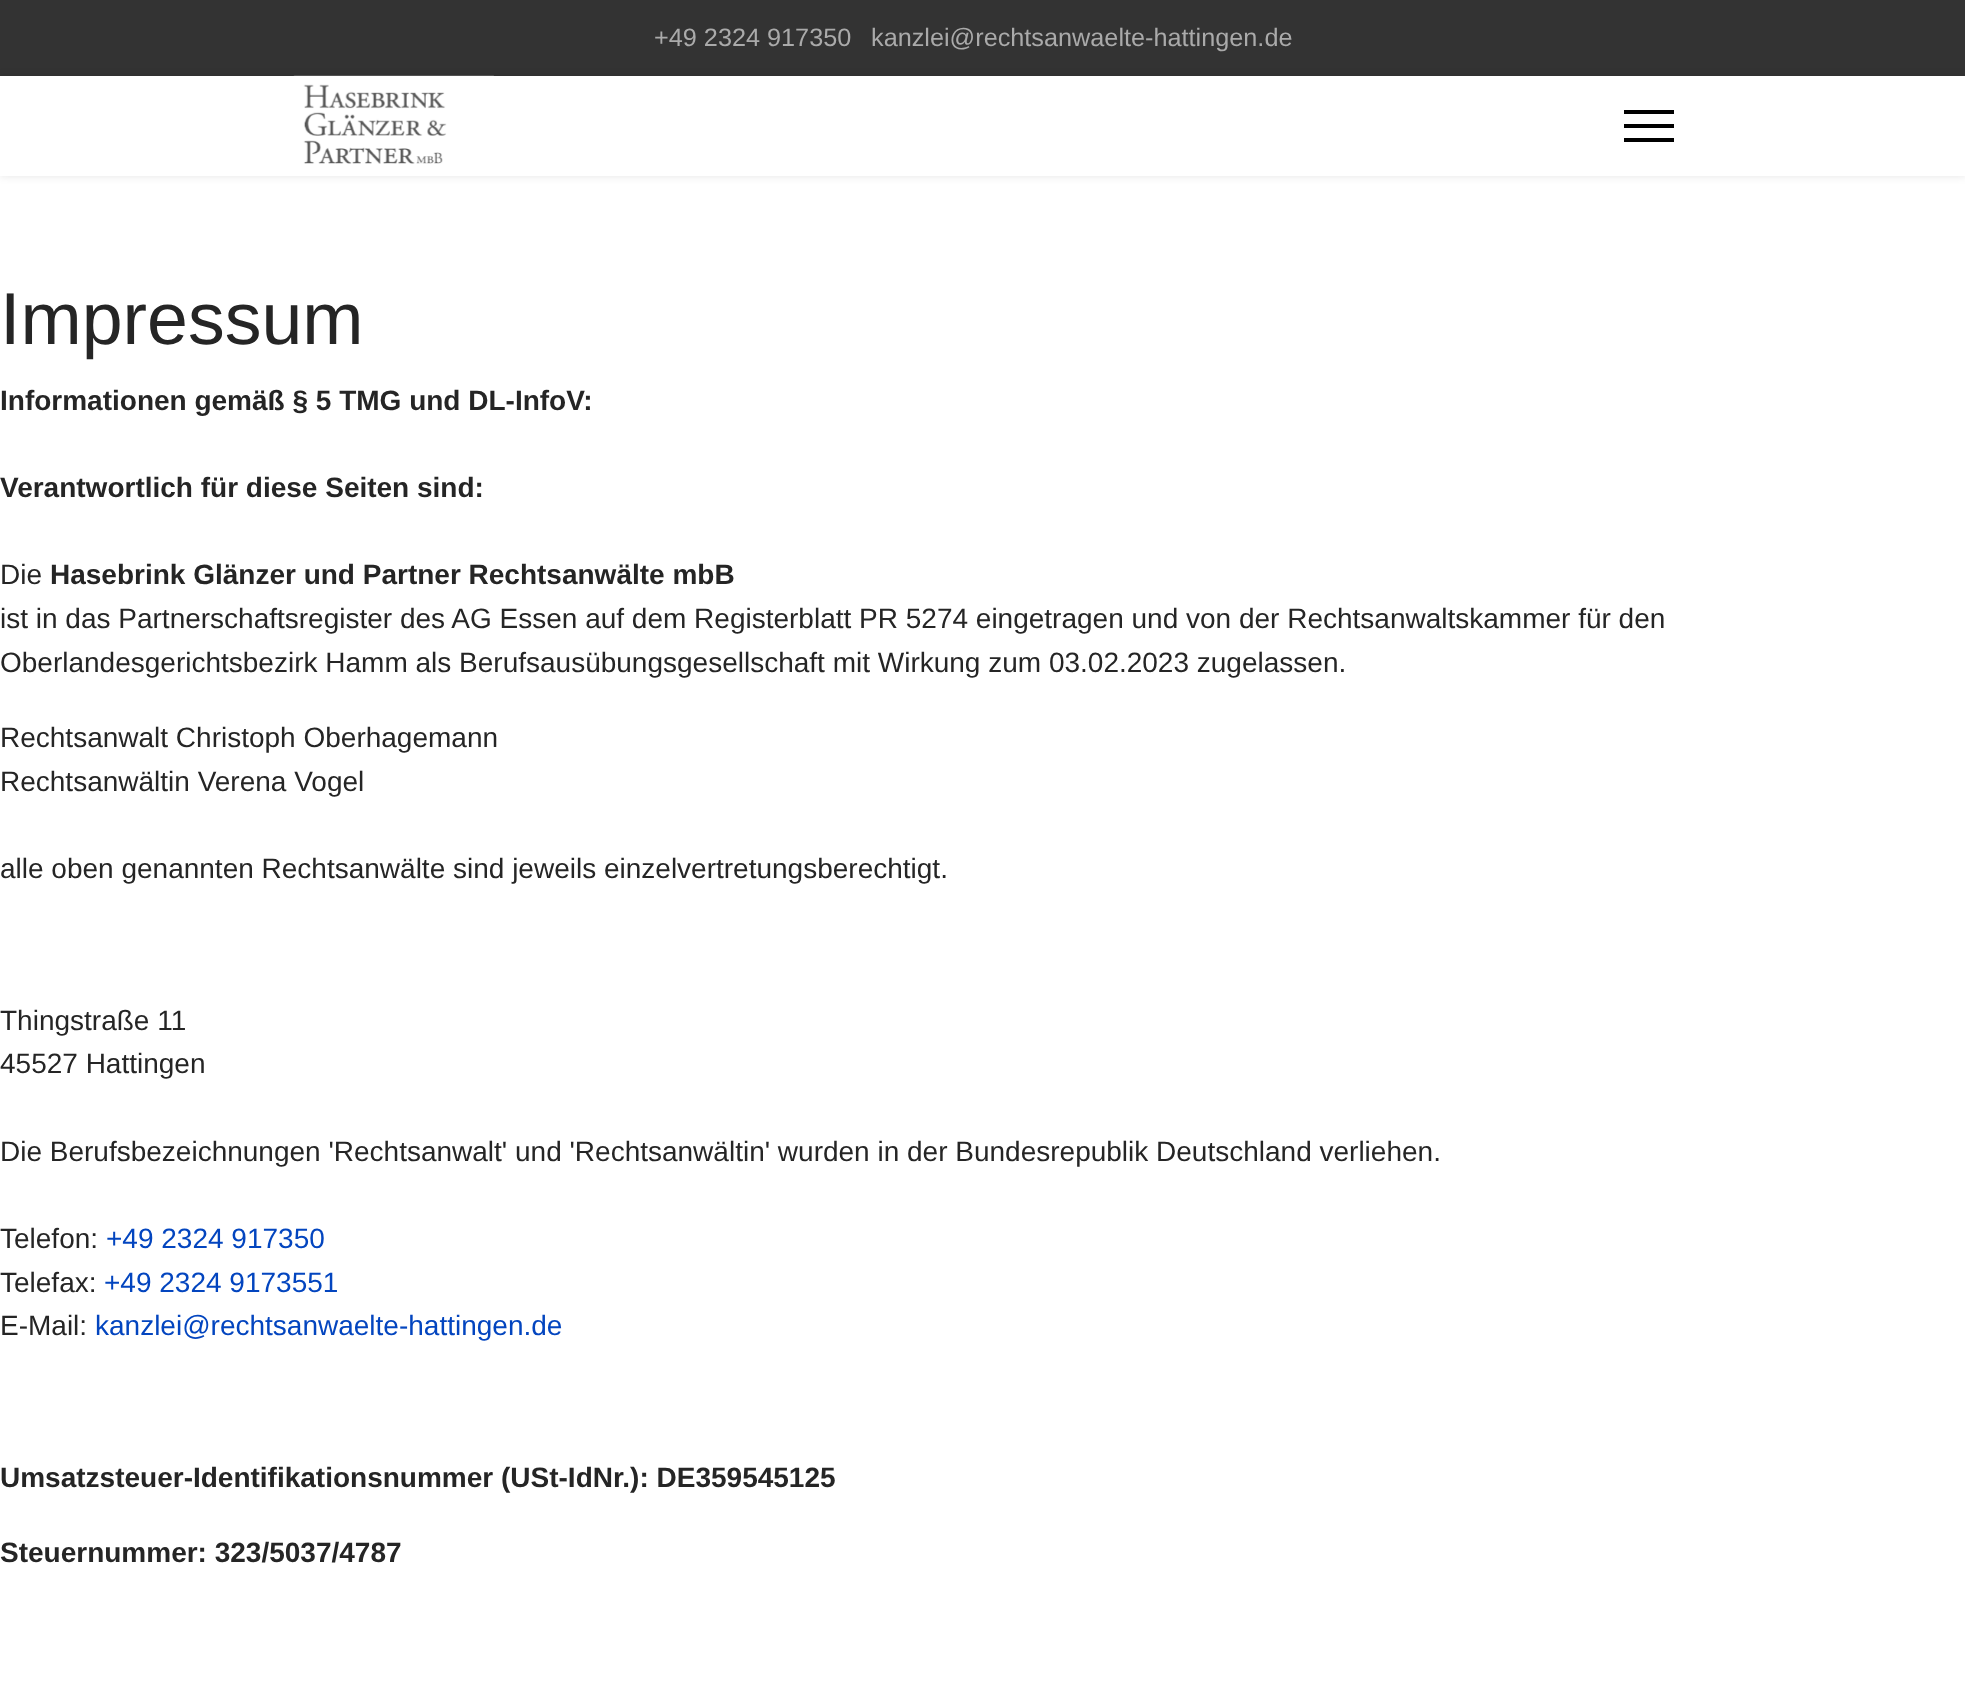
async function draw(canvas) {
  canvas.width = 1965
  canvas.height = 1695
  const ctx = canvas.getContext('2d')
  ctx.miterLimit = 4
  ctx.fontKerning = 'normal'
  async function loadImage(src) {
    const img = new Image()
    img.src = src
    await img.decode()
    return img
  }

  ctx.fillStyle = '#fff'
  ctx.fillRect(0, 0, 1965, 1695)
  ctx.fillStyle = '#333'
  ctx.fillRect(0, 0, 1965, 76)
  ctx.font = '25.25px Liberation Sans'
  ctx.fillStyle = '#aaa'
  ctx.fillText('+49 2324 917350', 654, 46)
  ctx.fillText('kanzlei@rechtsanwaelte-hattingen.de', 871, 46)
  ctx.save()
  ctx.beginPath()
  ctx.moveTo(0, 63)
  ctx.lineTo(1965, 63)
  ctx.lineTo(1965, 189)
  ctx.lineTo(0, 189)
  ctx.closePath()
  ctx.moveTo(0, 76)
  ctx.lineTo(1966, 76)
  ctx.lineTo(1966, 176)
  ctx.lineTo(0, 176)
  ctx.closePath()
  ctx.clip('evenodd')
  ctx.fillStyle = '#0000001a'
  ctx.filter = 'blur(4px)'
  ctx.beginPath()
  ctx.rect(0, 76, 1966, 100)
  ctx.fill()
  ctx.filter = 'none'
  ctx.restore()
  ctx.drawImage(await loadImage('image0.png'), 293, 75, 201, 89)
  ctx.fillStyle = '#000'
  ctx.fillRect(1624, 110, 50, 4)
  ctx.fillRect(1624, 124, 50, 4)
  ctx.fillRect(1624, 138, 50, 4)
  ctx.font = '73.5px Liberation Sans'
  ctx.fillStyle = '#252525'
  ctx.fillText('Impressum', 0, 344)
  ctx.font = 'bold 28px Liberation Sans'
  ctx.fillText('Informationen gemäß § 5 TMG und DL-InfoV:', 0, 410)
  ctx.fillText('Verantwortlich für diese Seiten sind:', 0, 497)
  ctx.font = '28px Liberation Sans'
  ctx.fillText('Die', 0, 584)
  ctx.font = 'bold 28px Liberation Sans'
  ctx.fillText('Hasebrink Glänzer und Partner Rechtsanwälte mbB', 50, 584)
  ctx.font = '28px Liberation Sans'
  ctx.fillText('ist in das Partnerschaftsregister des AG Essen auf dem Registerblatt PR 5274 eingetragen und von der Rechtsanwaltskammer für den', 0, 628)
  ctx.fillText('Oberlandesgerichtsbezirk Hamm als Berufsausübungsgesellschaft mit Wirkung zum 03.02.2023 zugelassen.', 0, 672)
  ctx.fillText('Rechtsanwalt Christoph Oberhagemann', 0, 747)
  ctx.fillText('Rechtsanwältin Verena Vogel', 0, 791)
  ctx.fillText('alle oben genannten Rechtsanwälte sind jeweils einzelvertretungsberechtigt.', 0, 878)
  ctx.fillText('Thingstraße 11', 0, 1030)
  ctx.fillText('45527 Hattingen', 0, 1073)
  ctx.fillText('Die Berufsbezeichnungen \'Rechtsanwalt\' und \'Rechtsanwältin\' wurden in der Bundesrepublik Deutschland verliehen.', 0, 1161)
  ctx.fillText('Telefon:', 0, 1248)
  ctx.fillStyle = '#0345bf'
  ctx.fillText('+49 2324 917350', 106, 1248)
  ctx.fillStyle = '#252525'
  ctx.fillText('Telefax:', 0, 1292)
  ctx.fillStyle = '#0345bf'
  ctx.fillText('+49 2324 9173551', 104, 1292)
  ctx.fillStyle = '#252525'
  ctx.fillText('E-Mail:', 0, 1335)
  ctx.fillStyle = '#0345bf'
  ctx.fillText('kanzlei@rechtsanwaelte-hattingen.de', 95, 1335)
  ctx.font = 'bold 28px Liberation Sans'
  ctx.fillStyle = '#252525'
  ctx.fillText('Umsatzsteuer-Identifikationsnummer (USt-IdNr.): DE359545125', 0, 1487)
  ctx.fillText('Steuernummer: 323/5037/4787', 0, 1562)
}

draw(document.querySelector('canvas'))
